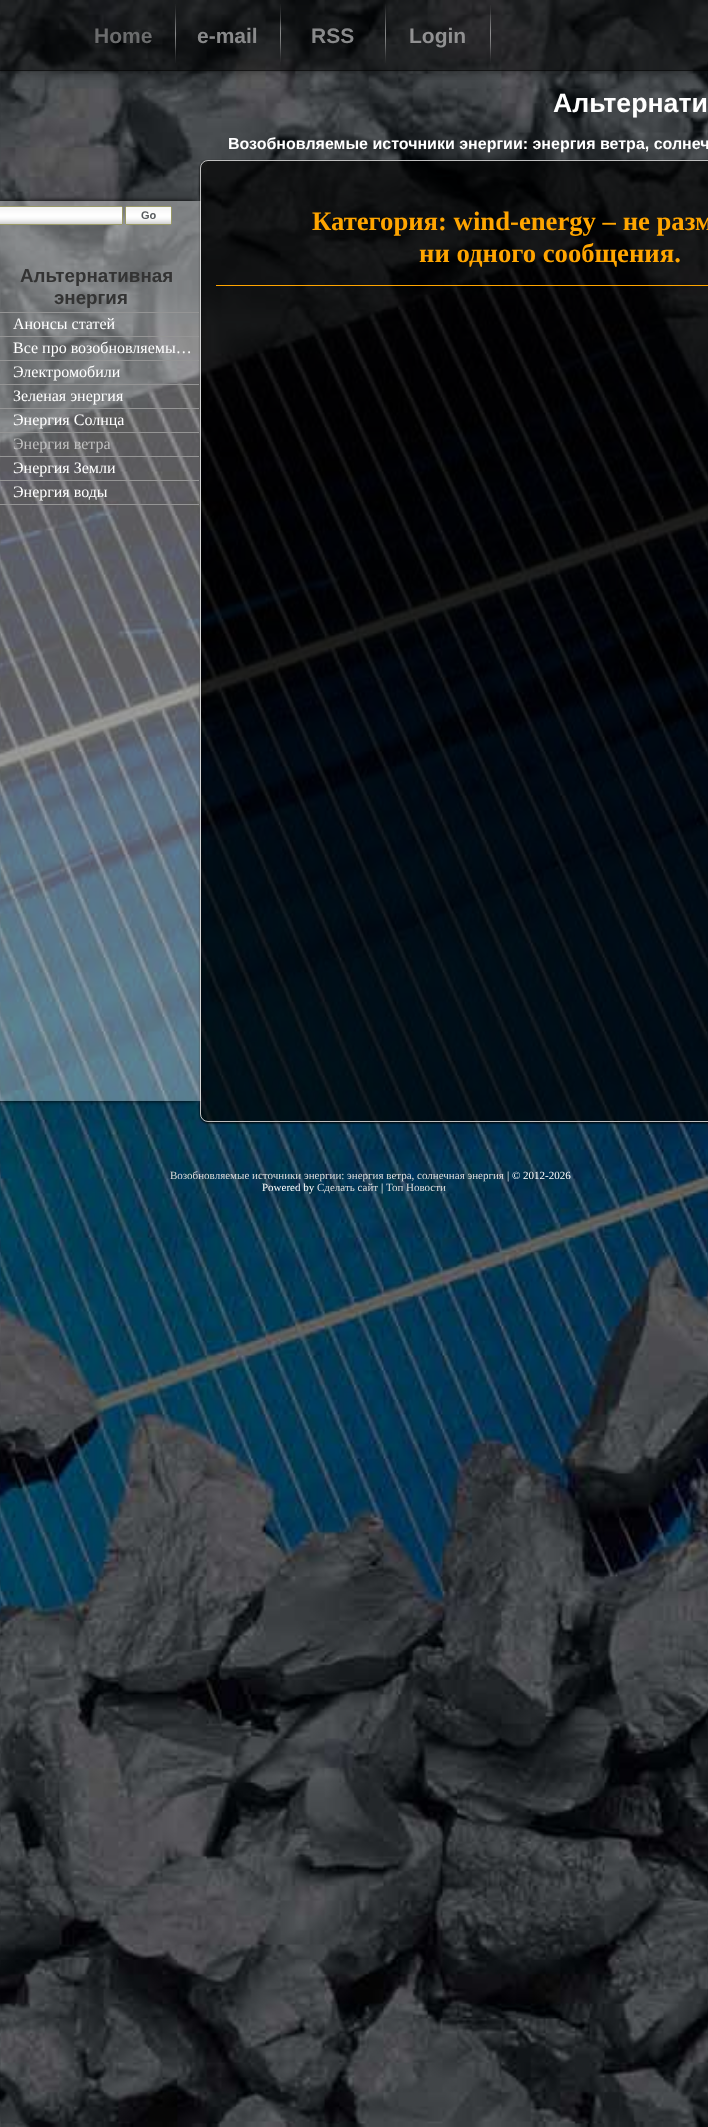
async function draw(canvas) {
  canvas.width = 708
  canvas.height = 2127
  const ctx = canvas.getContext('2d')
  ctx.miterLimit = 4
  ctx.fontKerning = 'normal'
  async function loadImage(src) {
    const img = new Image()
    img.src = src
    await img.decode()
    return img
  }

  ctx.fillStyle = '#fff'
  ctx.fillRect(0, 0, 708, 2127)
  ctx.drawImage(await loadImage('image0.png'), 0, 0, 708, 2127)
  ctx.save()
  ctx.beginPath()
  ctx.rect(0, 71, 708, 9)
  ctx.clip()
  ctx.fillStyle = '#00000080'
  ctx.filter = 'blur(5px)'
  ctx.beginPath()
  ctx.rect(0, 0, 708, 71)
  ctx.fill()
  ctx.filter = 'none'
  ctx.restore()
  ctx.fillStyle = '#00000080'
  ctx.fillRect(0, 0, 708, 71)
  ctx.fillRect(0, 70, 708, 1)
  ctx.drawImage(await loadImage('image1.png'), 175, 4, 1, 59)
  ctx.font = 'bold 21px Liberation Sans'
  ctx.fillStyle = '#6b6c6d'
  ctx.fillText('Home', 94, 43)
  ctx.drawImage(await loadImage('image2.png'), 280, 4, 1, 58)
  ctx.fillStyle = '#898a8b'
  ctx.fillText('e-mail', 197, 43)
  ctx.drawImage(await loadImage('image3.png'), 385, 4, 1, 59)
  ctx.fillText('RSS', 311, 43)
  ctx.drawImage(await loadImage('image4.png'), 490, 5, 1, 58)
  ctx.fillStyle = '#919192'
  ctx.fillText('Login', 409, 43)
  ctx.font = 'bold 26.7px Liberation Sans'
  ctx.fillStyle = '#fff'
  ctx.fillText('Альтернати', 553, 112)
  ctx.font = 'bold 16px Liberation Sans'
  ctx.fillText('Возобновляемые источники энергии: энергия ветра, солнеч', 228, 149)
  ctx.save()
  ctx.beginPath()
  ctx.moveTo(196, 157)
  ctx.lineTo(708, 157)
  ctx.lineTo(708, 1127)
  ctx.lineTo(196, 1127)
  ctx.closePath()
  ctx.moveTo(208, 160)
  ctx.lineTo(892, 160)
  ctx.bezierCurveTo(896.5, 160, 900, 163.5, 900, 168)
  ctx.lineTo(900, 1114)
  ctx.bezierCurveTo(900, 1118.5, 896.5, 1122, 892, 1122)
  ctx.lineTo(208, 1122)
  ctx.bezierCurveTo(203.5, 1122, 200, 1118.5, 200, 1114)
  ctx.lineTo(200, 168)
  ctx.bezierCurveTo(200, 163.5, 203.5, 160, 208, 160)
  ctx.closePath()
  ctx.clip('evenodd')
  ctx.fillStyle = '#000'
  ctx.filter = 'blur(1px)'
  ctx.beginPath()
  ctx.roundRect(200, 161, 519, 962, 8)
  ctx.fill()
  ctx.filter = 'none'
  ctx.restore()
  ctx.fillStyle = '#000000b3'
  ctx.beginPath()
  ctx.roundRect(200.5, 160.5, 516, 961, 7.5)
  ctx.fill()
  ctx.strokeStyle = '#c0c0c0'
  ctx.stroke()
  ctx.save()
  ctx.beginPath()
  ctx.moveTo(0, 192)
  ctx.lineTo(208, 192)
  ctx.lineTo(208, 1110)
  ctx.lineTo(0, 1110)
  ctx.closePath()
  ctx.moveTo(-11, 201)
  ctx.lineTo(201, 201)
  ctx.lineTo(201, 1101)
  ctx.lineTo(-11, 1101)
  ctx.bezierCurveTo(-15.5, 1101, -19, 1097.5, -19, 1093)
  ctx.lineTo(-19, 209)
  ctx.bezierCurveTo(-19, 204.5, -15.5, 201, -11, 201)
  ctx.closePath()
  ctx.clip('evenodd')
  ctx.fillStyle = '#000'
  ctx.filter = 'blur(2.5px)'
  ctx.beginPath()
  ctx.roundRect(-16, 201, 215, 900, 8)
  ctx.fill()
  ctx.filter = 'none'
  ctx.restore()
  ctx.fillStyle = '#ffffff59'
  ctx.fillRect(0, 201, 201, 900)
  ctx.fillStyle = '#996'
  ctx.fillRect(122, 207, 1, 17)
  ctx.drawImage(await loadImage('image5.png'), 0, 207, 122, 2)
  ctx.fillRect(0, 206, 122, 1)
  ctx.fillRect(0, 224, 122, 1)
  ctx.drawImage(await loadImage('image6.png'), 0, 209, 122, 15)
  ctx.fillRect(171, 207, 1, 17)
  ctx.fillRect(125, 207, 1, 17)
  ctx.drawImage(await loadImage('image7.png'), 126, 207, 45, 2)
  ctx.fillRect(126, 206, 45, 1)
  ctx.fillRect(126, 224, 45, 1)
  ctx.drawImage(await loadImage('image8.png'), 126, 209, 45, 15)
  ctx.font = 'bold 11px Liberation Sans'
  ctx.fillStyle = '#575b5e'
  ctx.fillText('Go', 141, 219)
  ctx.font = 'bold 18.75px Liberation Sans'
  ctx.fillStyle = '#333'
  ctx.fillText('Альтернативная', 20, 282)
  ctx.fillText('энергия', 54, 304)
  ctx.fillStyle = '#959595'
  ctx.fillRect(0, 312, 199, 1)
  ctx.fillRect(0, 336, 199, 1)
  ctx.font = '16px Liberation Serif'
  ctx.fillStyle = '#fff'
  ctx.fillText('Анонсы статей', 13, 329)
  ctx.fillStyle = '#959595'
  ctx.fillRect(0, 360, 199, 1)
  ctx.fillStyle = '#fff'
  ctx.fillText('Все про возобновляемы…', 13, 353)
  ctx.fillStyle = '#959595'
  ctx.fillRect(0, 384, 199, 1)
  ctx.fillStyle = '#fff'
  ctx.fillText('Электромобили', 13, 377)
  ctx.fillStyle = '#959595'
  ctx.fillRect(0, 408, 199, 1)
  ctx.fillStyle = '#fff'
  ctx.fillText('Зеленая энергия', 13, 401)
  ctx.fillStyle = '#959595'
  ctx.fillRect(0, 432, 199, 1)
  ctx.fillStyle = '#fff'
  ctx.fillText('Энергия Солнца', 13, 425)
  ctx.fillStyle = '#959595'
  ctx.fillRect(0, 456, 199, 1)
  ctx.fillStyle = '#c0c0c0'
  ctx.fillText('Энергия ветра', 13, 449)
  ctx.fillStyle = '#959595'
  ctx.fillRect(0, 480, 199, 1)
  ctx.fillStyle = '#fff'
  ctx.fillText('Энергия Земли', 13, 473)
  ctx.fillStyle = '#959595'
  ctx.fillRect(0, 504, 199, 1)
  ctx.fillStyle = '#fff'
  ctx.fillText('Энергия воды', 13, 497)
  ctx.fillStyle = '#ffa500'
  ctx.fillRect(216, 285, 492, 1)
  ctx.font = 'bold 26.7px Liberation Serif'
  ctx.fillText('Категория: wind-energy – не разм', 312, 230)
  ctx.fillText('ни одного сообщения.', 419, 262)
  ctx.font = '11px Liberation Serif'
  ctx.fillStyle = '#ddd'
  ctx.fillText('Возобновляемые источники энергии: энергия ветра, солнечная энергия', 170, 1179)
  ctx.fillStyle = '#fff'
  ctx.fillText('| © 2012-2026', 507, 1179)
  ctx.fillText('Powered by', 262, 1191)
  ctx.fillStyle = '#ddd'
  ctx.fillText('Сделать сайт', 317, 1191)
  ctx.fillStyle = '#fff'
  ctx.fillText('|', 381, 1191)
  ctx.fillStyle = '#ddd'
  ctx.fillText('Топ Новости', 386, 1191)
}

draw(document.querySelector('canvas'))
